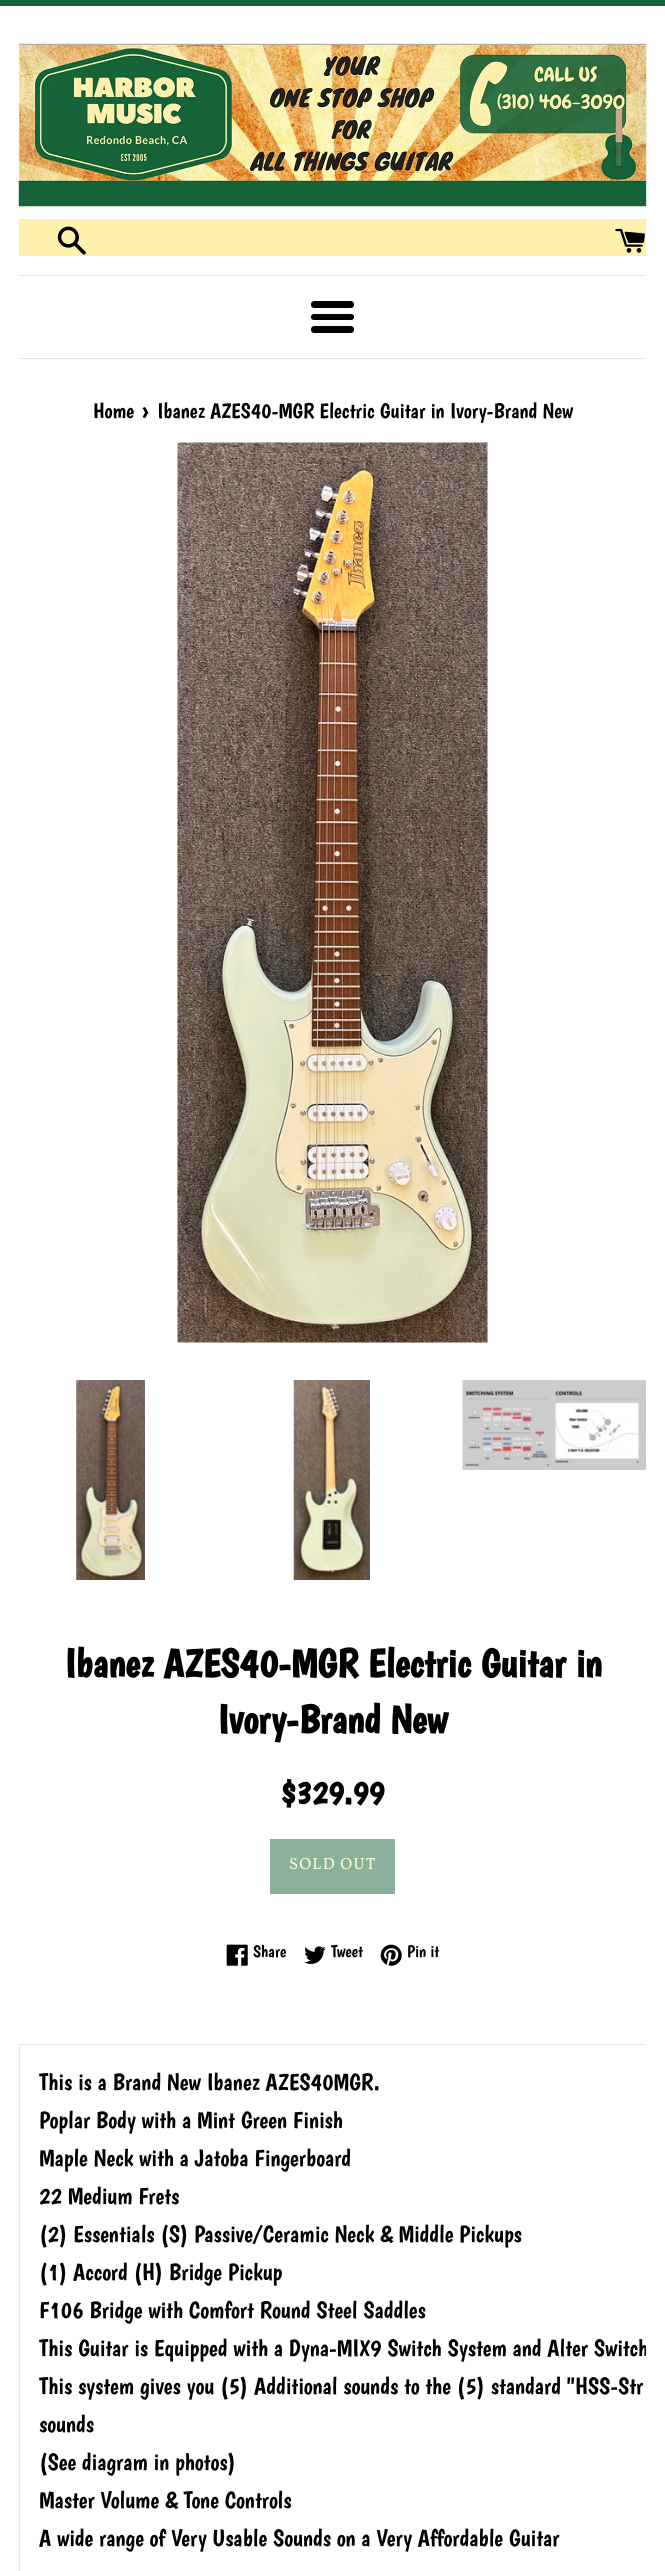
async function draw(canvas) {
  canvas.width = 665
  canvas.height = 2571
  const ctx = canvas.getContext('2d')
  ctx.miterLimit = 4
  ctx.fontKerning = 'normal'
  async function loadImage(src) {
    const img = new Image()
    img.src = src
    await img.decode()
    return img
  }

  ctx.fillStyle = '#fff'
  ctx.fillRect(0, 0, 665, 2571)
  ctx.fillStyle = '#166339'
  ctx.fillRect(0, 0, 665, 6)
  ctx.drawImage(await loadImage('image0.png'), 18, 43, 629, 164)
  ctx.fillStyle = '#fff0ad'
  ctx.fillRect(19, 219, 627, 37)
  ctx.drawImage(await loadImage('image1.png'), 57, 226, 29, 29)
  ctx.drawImage(await loadImage('image2.png'), 615, 228, 30, 25)
  ctx.fillStyle = '#e8e8e8'
  ctx.fillRect(19, 275, 627, 1)
  ctx.fillStyle = '#000'
  ctx.beginPath()
  ctx.roundRect(311, 301, 43, 7, 3.5)
  ctx.fill()
  ctx.beginPath()
  ctx.roundRect(311, 314, 43, 6, 3)
  ctx.fill()
  ctx.beginPath()
  ctx.roundRect(311, 326, 43, 7, 3.5)
  ctx.fill()
  ctx.fillStyle = '#e8e8e8'
  ctx.fillRect(19, 358, 627, 1)
  ctx.font = '21.4px Boogaloo'
  ctx.fillStyle = '#000'
  ctx.fillText('Home', 93, 418)
  ctx.font = '26px Boogaloo'
  ctx.fillText('›', 142, 418)
  ctx.font = '21.4px Boogaloo'
  ctx.fillText('Ibanez AZES40-MGR Electric Guitar in Ivory-Brand New', 157, 418)
  ctx.drawImage(await loadImage('image3.png'), 177, 442, 311, 901)
  ctx.drawImage(await loadImage('image4.png'), 76, 1380, 69, 200)
  ctx.drawImage(await loadImage('image5.png'), 293, 1380, 77, 200)
  ctx.drawImage(await loadImage('image6.png'), 462, 1380, 184, 90)
  ctx.font = 'bold 40px Boogaloo'
  ctx.fillText('Ibanez AZES40-MGR Electric Guitar in', 64, 1677)
  ctx.fillText('Ivory-Brand New', 217, 1733)
  ctx.font = 'bold 33px Boogaloo'
  ctx.fillText('$329.99', 280, 1804)
  ctx.fillStyle = '#8bb19c'
  ctx.fillRect(270, 1839, 125, 55)
  ctx.letterSpacing = '1.25px'
  ctx.font = '16.25px Vollkorn'
  ctx.fillStyle = '#fff8d6'
  ctx.fillText('SOLD OUT', 289, 1869)
  ctx.drawImage(await loadImage('image7.png'), 226, 1944, 22, 22)
  ctx.letterSpacing = '0px'
  ctx.font = '17px Boogaloo'
  ctx.fillStyle = '#000'
  ctx.fillText('Share', 253, 1957)
  ctx.drawImage(await loadImage('image8.png'), 304, 1946, 22, 18)
  ctx.fillText('Tweet', 331, 1957)
  ctx.drawImage(await loadImage('image9.png'), 380, 1944, 22, 22)
  ctx.fillText('Pin it', 407, 1957)
  ctx.fillStyle = '#e8e8e8'
  ctx.fillRect(19, 2044, 627, 1)
  ctx.fillRect(19, 2044, 1, 527)
  ctx.font = '23.75px Boogaloo'
  ctx.fillStyle = '#000'
  ctx.fillText('This is a Brand New Ibanez AZES40MGR.', 39, 2090)
  ctx.fillText('Poplar Body with a Mint Green Finish', 39, 2128)
  ctx.fillText('Maple Neck with a Jatoba Fingerboard', 39, 2166)
  ctx.fillText('22 Medium Frets', 39, 2204)
  ctx.fillText('(2) Essentials (S) Passive/Ceramic Neck & Middle Pickups', 39, 2242)
  ctx.fillText('(1) Accord (H) Bridge Pickup', 39, 2280)
  ctx.fillText('F106 Bridge with Comfort Round Steel Saddles', 39, 2318)
  ctx.save()
  ctx.beginPath()
  ctx.rect(19, 2044, 627, 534)
  ctx.clip()
  ctx.fillText('This Guitar is Equipped with a Dyna-MIX9 Switch System and Alter Switch', 39, 2356)
  ctx.restore()
  ctx.fillText('This system gives you (5) Additional sounds to the (5) standard "HSS-Str', 39, 2394)
  ctx.fillText('sounds', 39, 2432)
  ctx.fillText('(See diagram in photos)', 39, 2470)
  ctx.fillText('Master Volume & Tone Controls', 39, 2508)
  ctx.fillText('A wide range of Very Usable Sounds on a Very Affordable Guitar', 39, 2546)
}

draw(document.querySelector('canvas'))
